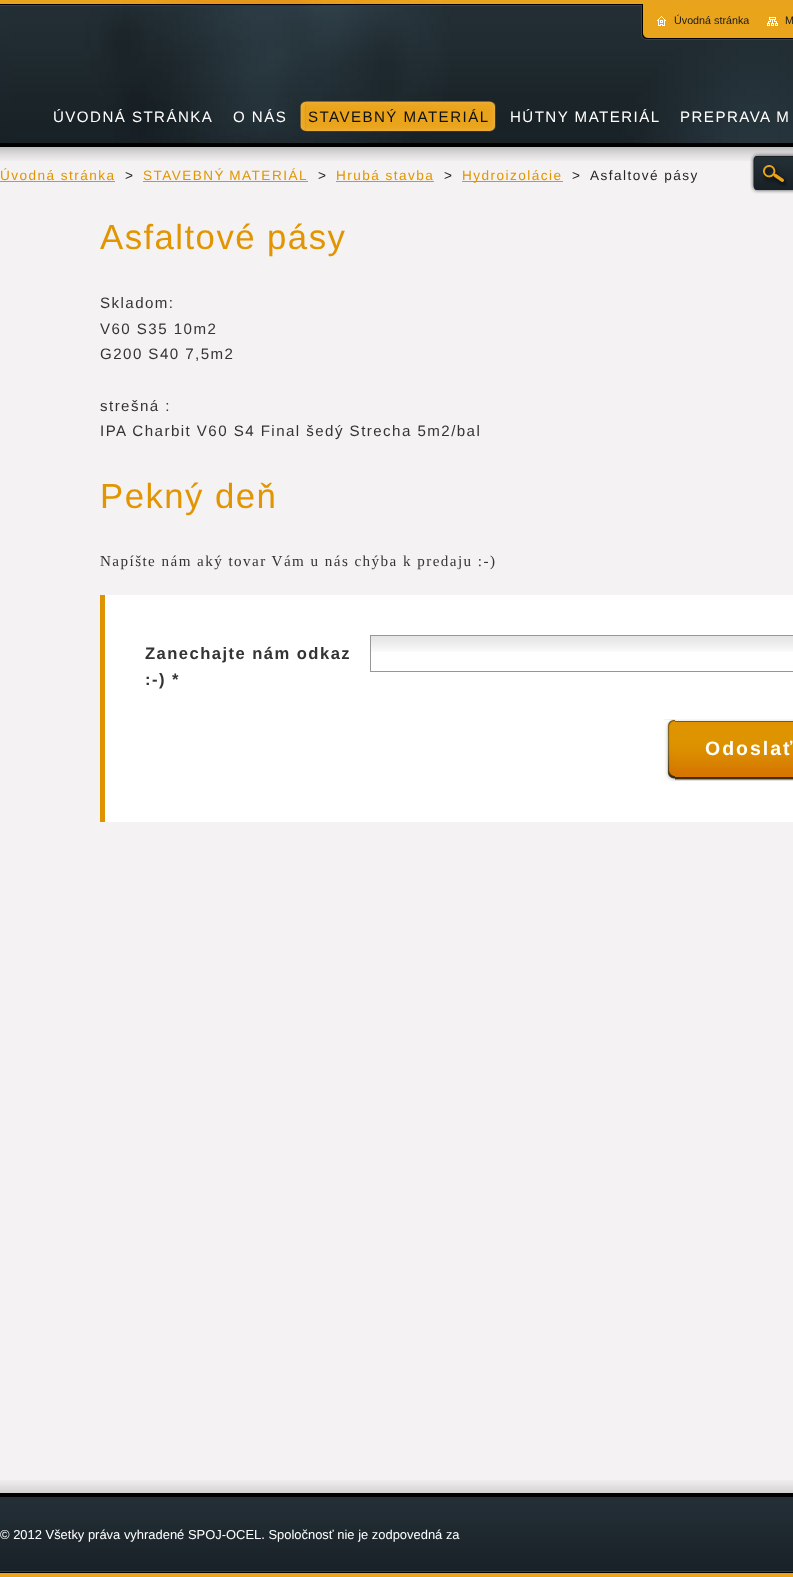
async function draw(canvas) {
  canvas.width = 793
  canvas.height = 1577
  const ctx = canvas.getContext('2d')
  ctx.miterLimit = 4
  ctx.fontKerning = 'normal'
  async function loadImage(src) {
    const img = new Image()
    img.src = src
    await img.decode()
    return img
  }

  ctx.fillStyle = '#f4f2f2'
  ctx.fillRect(0, 0, 793, 1577)
  ctx.drawImage(await loadImage('image0.png'), 0, 0, 793, 161)
  ctx.drawImage(await loadImage('image1.png'), 10, 0, 783, 144)
  ctx.drawImage(await loadImage('image2.png'), 641, 1, 7, 39)
  ctx.drawImage(await loadImage('image3.png'), 648, 1, 145, 39)
  ctx.drawImage(await loadImage('image4.png'), 657, 16, 9, 10)
  ctx.font = '10.75px Liberation Sans'
  ctx.fillStyle = '#181a1b'
  ctx.fillText('Úvodná stránka', 674, 24)
  ctx.drawImage(await loadImage('image5.png'), 767, 17, 11, 9)
  ctx.fillText('M', 785, 24)
  ctx.letterSpacing = '1.45px'
  ctx.font = '15.1px Liberation Sans'
  ctx.fillStyle = '#fff'
  ctx.fillText('ÚVODNÁ STRÁNKA', 53, 122)
  ctx.fillText('O NÁS', 233, 122)
  ctx.drawImage(await loadImage('image6.png'), 300, 101, 6, 30)
  ctx.drawImage(await loadImage('image7.png'), 306, 101, 190, 31)
  ctx.fillStyle = '#101112'
  ctx.fillText('STAVEBNÝ MATERIÁL', 308, 122)
  ctx.fillStyle = '#fff'
  ctx.fillText('HÚTNY MATERIÁL', 510, 122)
  ctx.fillText('PREPRAVA M', 680, 122)
  ctx.font = '13.6px Liberation Sans'
  ctx.fillStyle = '#e29500'
  ctx.fillText('Úvodná stránka', 0, 180)
  ctx.fillRect(0, 181, 115, 1)
  ctx.fillStyle = '#252525'
  ctx.fillText('>', 125, 180)
  ctx.wordSpacing = '-1px'
  ctx.fillStyle = '#e29500'
  ctx.fillText('STAVEBNÝ MATERIÁL', 143, 180)
  ctx.fillRect(143, 181, 165, 1)
  ctx.wordSpacing = '0px'
  ctx.fillStyle = '#252525'
  ctx.fillText('>', 318, 180)
  ctx.fillStyle = '#e29500'
  ctx.fillText('Hrubá stavba', 336, 180)
  ctx.fillRect(336, 181, 98, 1)
  ctx.fillStyle = '#252525'
  ctx.fillText('>', 444, 180)
  ctx.fillStyle = '#e29500'
  ctx.fillRect(462, 181, 101, 1)
  ctx.fillText('Hydroizolácie', 462, 180)
  ctx.fillStyle = '#252525'
  ctx.fillText('>', 572, 180)
  ctx.fillText('Asfaltové pásy', 590, 180)
  ctx.drawImage(await loadImage('image8.png'), 750, 152, 43, 42)
  ctx.drawImage(await loadImage('image9.png'), 763, 165, 24, 21)
  ctx.font = '34.75px Liberation Sans'
  ctx.fillStyle = '#e29500'
  ctx.fillText('Asfaltové pásy', 100, 249)
  ctx.font = '15.1px Liberation Sans'
  ctx.fillStyle = '#353333'
  ctx.fillText('Skladom:', 100, 308)
  ctx.fillText('V60 S35 10m2', 100, 334)
  ctx.fillText('G200 S40 7,5m2', 100, 359)
  ctx.fillText('strešná :', 100, 411)
  ctx.fillText('IPA Charbit V60 S4 Final šedý Strecha 5m2/bal', 100, 436)
  ctx.font = '34.75px Liberation Sans'
  ctx.fillStyle = '#e29500'
  ctx.fillText('Pekný deň', 100, 508)
  ctx.font = '15.1px Liberation Serif'
  ctx.fillStyle = '#353333'
  ctx.fillText('Napíšte nám aký tovar Vám u nás chýba k predaju :-)', 100, 566)
  ctx.fillStyle = '#fff'
  ctx.fillRect(105, 595, 688, 227)
  ctx.fillStyle = '#df9300'
  ctx.fillRect(100, 595, 5, 227)
  ctx.font = 'bold 16.6px Liberation Sans'
  ctx.fillStyle = '#353333'
  ctx.fillText('Zanechajte nám odkaz', 145, 659)
  ctx.fillText(':-) *', 145, 685)
  ctx.drawImage(await loadImage('image10.png'), 371, 636, 422, 16)
  ctx.strokeStyle = '#979797'
  ctx.strokeRect(370.5, 635.5, 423, 36)
  ctx.drawImage(await loadImage('image11.png'), 664, 719, 12, 63)
  ctx.drawImage(await loadImage('image12.png'), 675, 719, 118, 62)
  ctx.letterSpacing = '2px'
  ctx.font = 'bold 19.5px Liberation Sans'
  ctx.fillStyle = '#fff'
  ctx.fillText('Odoslať', 705, 755)
  ctx.drawImage(await loadImage('image13.png'), 0, 1480, 793, 97)
  ctx.letterSpacing = '0px'
  ctx.font = '12.95px Liberation Sans'
  ctx.fillText('© 2012 Všetky práva vyhradené SPOJ-OCEL. Spoločnosť nie je zodpovedná za', 0, 1539)
}

draw(document.querySelector('canvas'))
